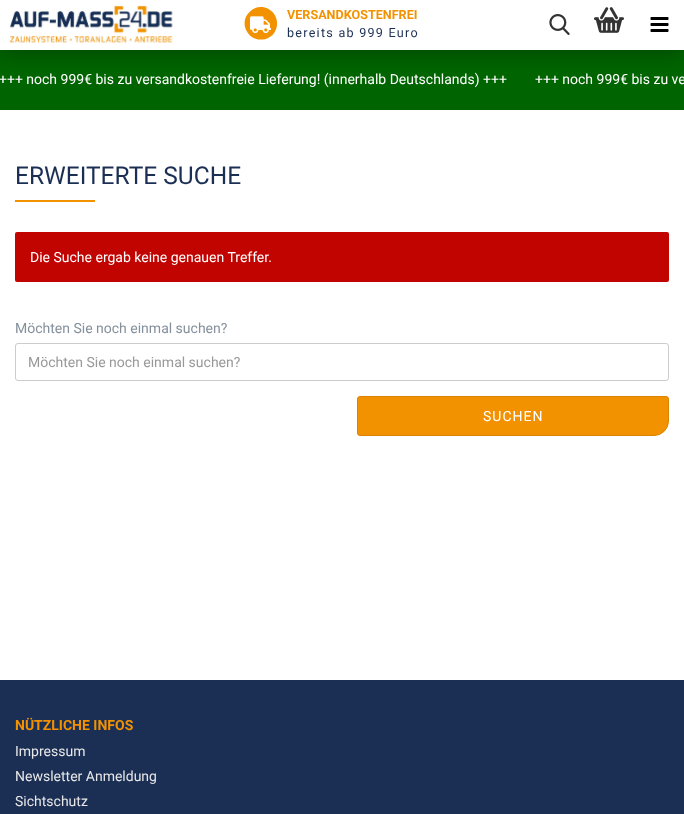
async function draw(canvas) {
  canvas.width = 684
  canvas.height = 814
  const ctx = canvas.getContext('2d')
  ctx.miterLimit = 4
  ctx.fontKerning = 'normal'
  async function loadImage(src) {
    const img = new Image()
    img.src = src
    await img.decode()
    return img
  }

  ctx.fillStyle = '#fff'
  ctx.fillRect(0, 0, 684, 814)
  ctx.fillStyle = '#006400'
  ctx.fillRect(0, 50, 684, 60)
  ctx.save()
  ctx.beginPath()
  ctx.rect(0, 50, 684, 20)
  ctx.clip()
  ctx.fillStyle = '#00000059'
  ctx.filter = 'blur(12.5px)'
  ctx.beginPath()
  ctx.rect(0, 0, 684, 50)
  ctx.fill()
  ctx.filter = 'none'
  ctx.restore()
  ctx.drawImage(await loadImage('image0.png'), 9, 5, 164, 38)
  ctx.drawImage(await loadImage('image1.png'), 549, 14, 21, 21)
  ctx.drawImage(await loadImage('image2.png'), 594, 7, 30, 26)
  ctx.drawImage(await loadImage('image3.png'), 650, 17, 19, 15)
  ctx.fillStyle = '#f39200'
  ctx.beginPath()
  ctx.moveTo(249.5, 12)
  ctx.bezierCurveTo(260, 1, 278.5, 10, 277, 25)
  ctx.bezierCurveTo(276.5, 29, 275, 32.5, 272.5, 35)
  ctx.bezierCurveTo(269.5, 37.5, 266, 39.5, 262.5, 39.5)
  ctx.bezierCurveTo(247.5, 41, 238.5, 22.5, 249.5, 12)
  ctx.closePath()
  ctx.fill()
  ctx.drawImage(await loadImage('image4.png'), 250, 16, 21, 18)
  ctx.font = 'bold 12.6px Roboto'
  ctx.fillText('VERSANDKOSTENFREI', 287, 19)
  ctx.letterSpacing = '1.25px'
  ctx.font = '12.6px Roboto'
  ctx.fillStyle = '#1b2f54'
  ctx.fillText('bereits ab 999 Euro', 287, 37)
  ctx.letterSpacing = '0px'
  ctx.font = '14px Roboto'
  ctx.fillStyle = '#fff'
  ctx.fillText('+++ noch 999€ bis zu versandkostenfreie Lieferung! (innerhalb Deutschlands) +++', -1, 84)
  ctx.fillText('+++ noch 999€ bis zu ve', 535, 84)
  ctx.font = '24.5px Roboto'
  ctx.fillStyle = '#1b2f54'
  ctx.fillText('ERWEITERTE SUCHE', 15, 184)
  ctx.fillStyle = '#f39200'
  ctx.fillRect(15, 200, 80, 2)
  ctx.fillStyle = '#c20400'
  ctx.beginPath()
  ctx.roundRect(15, 232, 654, 50, 2)
  ctx.fill()
  ctx.font = '14px Roboto'
  ctx.fillStyle = '#fff'
  ctx.fillText('Die Suche ergab keine genauen Treffer.', 30, 262)
  ctx.fillStyle = '#84909c'
  ctx.fillText('Möchten Sie noch einmal suchen?', 15, 333)
  ctx.beginPath()
  ctx.roundRect(15.5, 343.5, 653, 37, 2.5)
  ctx.strokeStyle = '#ccc'
  ctx.stroke()
  ctx.fillStyle = '#999'
  ctx.fillText('Möchten Sie noch einmal suchen?', 28, 367)
  ctx.fillStyle = '#f39200'
  ctx.beginPath()
  ctx.roundRect(357.5, 396.5, 311, 39, [2.5, 2.5, 14.5, 2.5])
  ctx.fill()
  ctx.strokeStyle = '#da8300'
  ctx.stroke()
  ctx.letterSpacing = '1px'
  ctx.fillStyle = '#fff'
  ctx.fillText('SUCHEN', 483, 421)
  ctx.fillStyle = '#1b2f54'
  ctx.fillRect(0, 680, 684, 134)
  ctx.letterSpacing = '0px'
  ctx.font = 'bold 14px Roboto'
  ctx.fillStyle = '#f39200'
  ctx.fillText('NÜTZLICHE INFOS', 15, 730)
  ctx.font = '14px Roboto'
  ctx.fillStyle = '#e7e7e7'
  ctx.fillText('Impressum', 15, 756)
  ctx.fillText('Newsletter Anmeldung', 15, 781)
  ctx.fillText('Sichtschutz', 15, 806)
}

draw(document.querySelector('canvas'))
